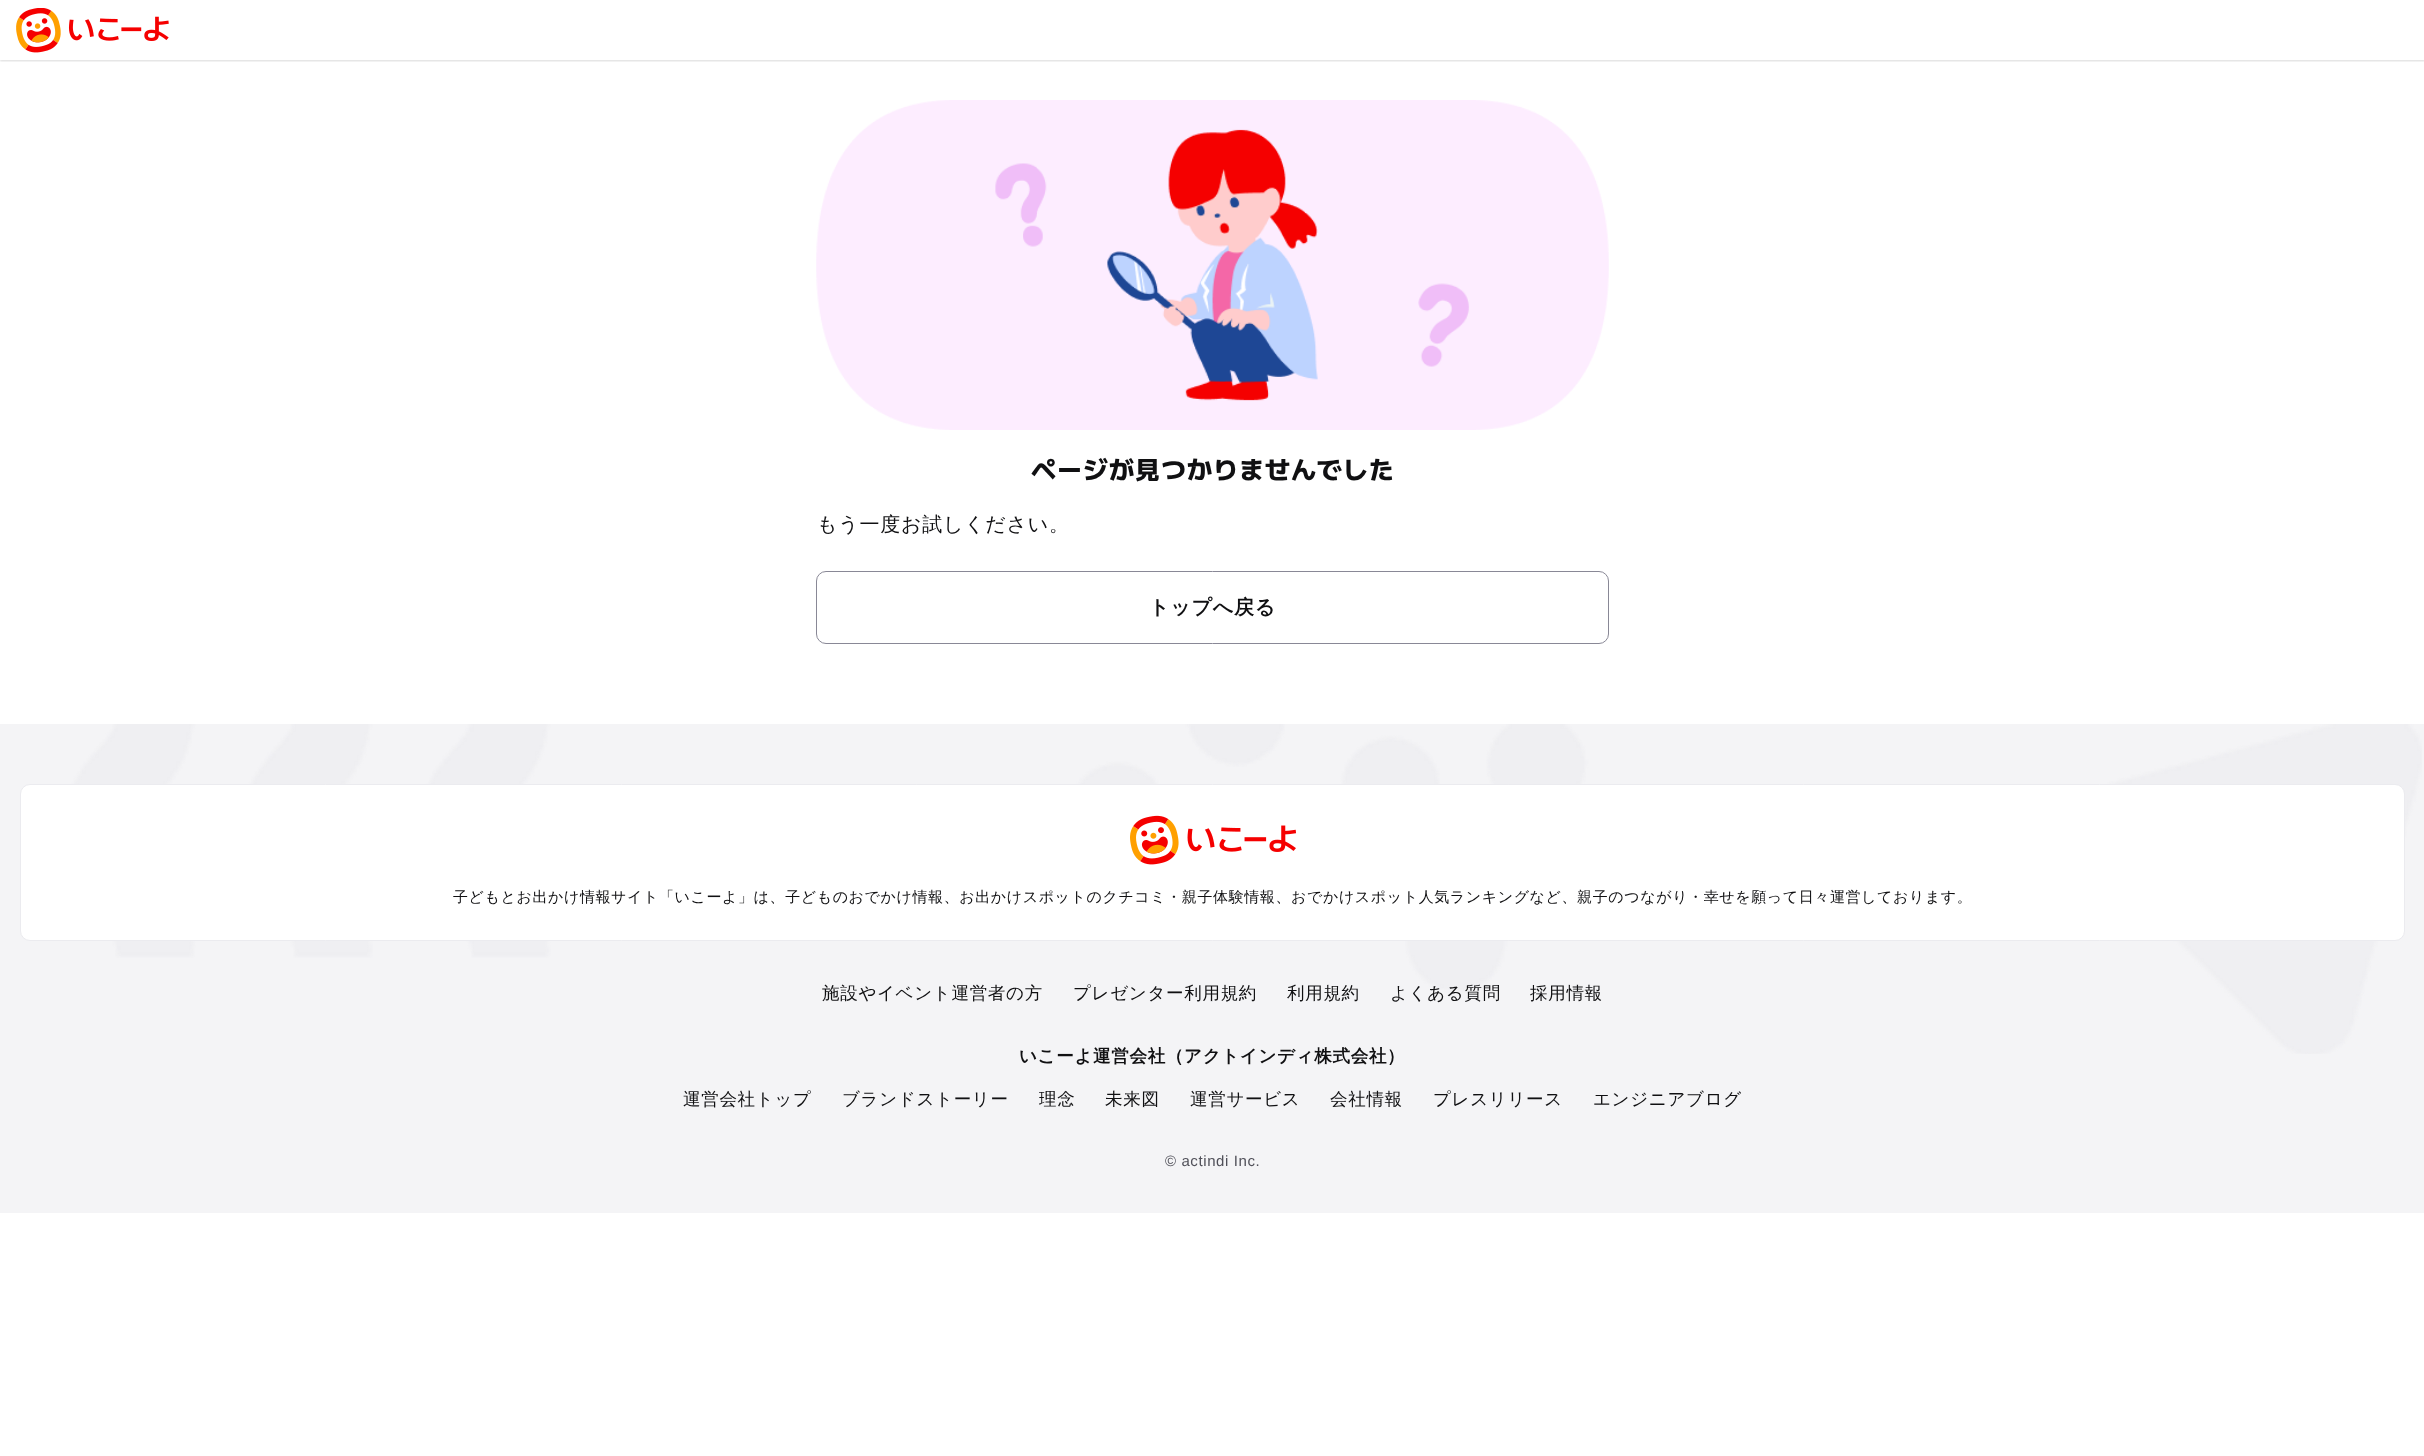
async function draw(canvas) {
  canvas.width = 2424
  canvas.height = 1456
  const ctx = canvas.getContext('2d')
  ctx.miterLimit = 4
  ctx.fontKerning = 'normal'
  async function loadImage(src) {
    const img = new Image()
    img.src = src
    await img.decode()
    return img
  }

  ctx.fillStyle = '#fff'
  ctx.fillRect(0, 0, 2424, 1456)
  ctx.save()
  ctx.beginPath()
  ctx.rect(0, 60, 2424, 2)
  ctx.clip()
  ctx.fillStyle = '#00000026'
  ctx.filter = 'blur(1px)'
  ctx.beginPath()
  ctx.rect(0, 1, 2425, 60)
  ctx.fill()
  ctx.filter = 'none'
  ctx.restore()
  ctx.drawImage(await loadImage('image0.png'), 16, 8, 153, 45)
  ctx.drawImage(await loadImage('image1.png'), 816, 100, 793, 330)
  ctx.letterSpacing = '1px'
  ctx.font = '100 25px "M PLUS 2"'
  ctx.fillStyle = '#101012'
  ctx.fillText('ページが見つかりませんでした', 1031, 479)
  ctx.letterSpacing = '0.75px'
  ctx.font = '500 20px WenQuanYi Zen Hei'
  ctx.fillText('もう一度お試しください。', 817, 531)
  ctx.beginPath()
  ctx.roundRect(816.5, 571.5, 792, 72, 9.5)
  ctx.strokeStyle = '#898896'
  ctx.stroke()
  ctx.font = 'bold 20px WenQuanYi Zen Hei'
  ctx.fillText('トップへ戻る', 1149, 614)
  ctx.fillStyle = '#f4f4f6'
  ctx.fillRect(0, 724, 2424, 489)
  ctx.drawImage(await loadImage('image2.png'), 71, 724, 2351, 330)
  ctx.fillStyle = '#fff'
  ctx.beginPath()
  ctx.roundRect(20.5, 784.5, 2384, 156, 9.5)
  ctx.fill()
  ctx.strokeStyle = '#ebebef'
  ctx.stroke()
  ctx.drawImage(await loadImage('image3.png'), 1130, 815, 166, 50)
  ctx.letterSpacing = '0.6px'
  ctx.font = '500 15px WenQuanYi Zen Hei'
  ctx.fillStyle = '#101012'
  ctx.fillText('子どもとお出かけ情報サイト「いこーよ」は、子どものおでかけ情報、お出かけスポットのクチコミ・親子体験情報、おでかけスポット人気ランキングなど、親子のつながり・幸せを願って日々運営しております。', 453, 902)
  ctx.letterSpacing = '0.7px'
  ctx.font = '500 17.5px WenQuanYi Zen Hei'
  ctx.fillText('施設やイベント運営者の方', 822, 999)
  ctx.fillText('プレゼンター利用規約', 1073, 999)
  ctx.fillText('利用規約', 1287, 999)
  ctx.fillText('よくある質問', 1390, 999)
  ctx.fillText('採用情報', 1530, 999)
  ctx.font = 'bold 17.5px WenQuanYi Zen Hei'
  ctx.fillText('いこーよ運営会社（アクトインディ株式会社）', 1019, 1062)
  ctx.font = '500 17.5px WenQuanYi Zen Hei'
  ctx.fillText('運営会社トップ', 683, 1105)
  ctx.fillText('ブランドストーリー', 842, 1105)
  ctx.fillText('理念', 1039, 1105)
  ctx.fillText('未来図', 1105, 1105)
  ctx.fillText('運営サービス', 1190, 1105)
  ctx.fillText('会社情報', 1330, 1105)
  ctx.fillText('プレスリリース', 1433, 1105)
  ctx.fillText('エンジニアブログ', 1593, 1105)
  ctx.letterSpacing = '0.6px'
  ctx.font = '15px Liberation Sans'
  ctx.fillStyle = '#505059'
  ctx.fillText('© actindi Inc.', 1165, 1166)
}

draw(document.querySelector('canvas'))
